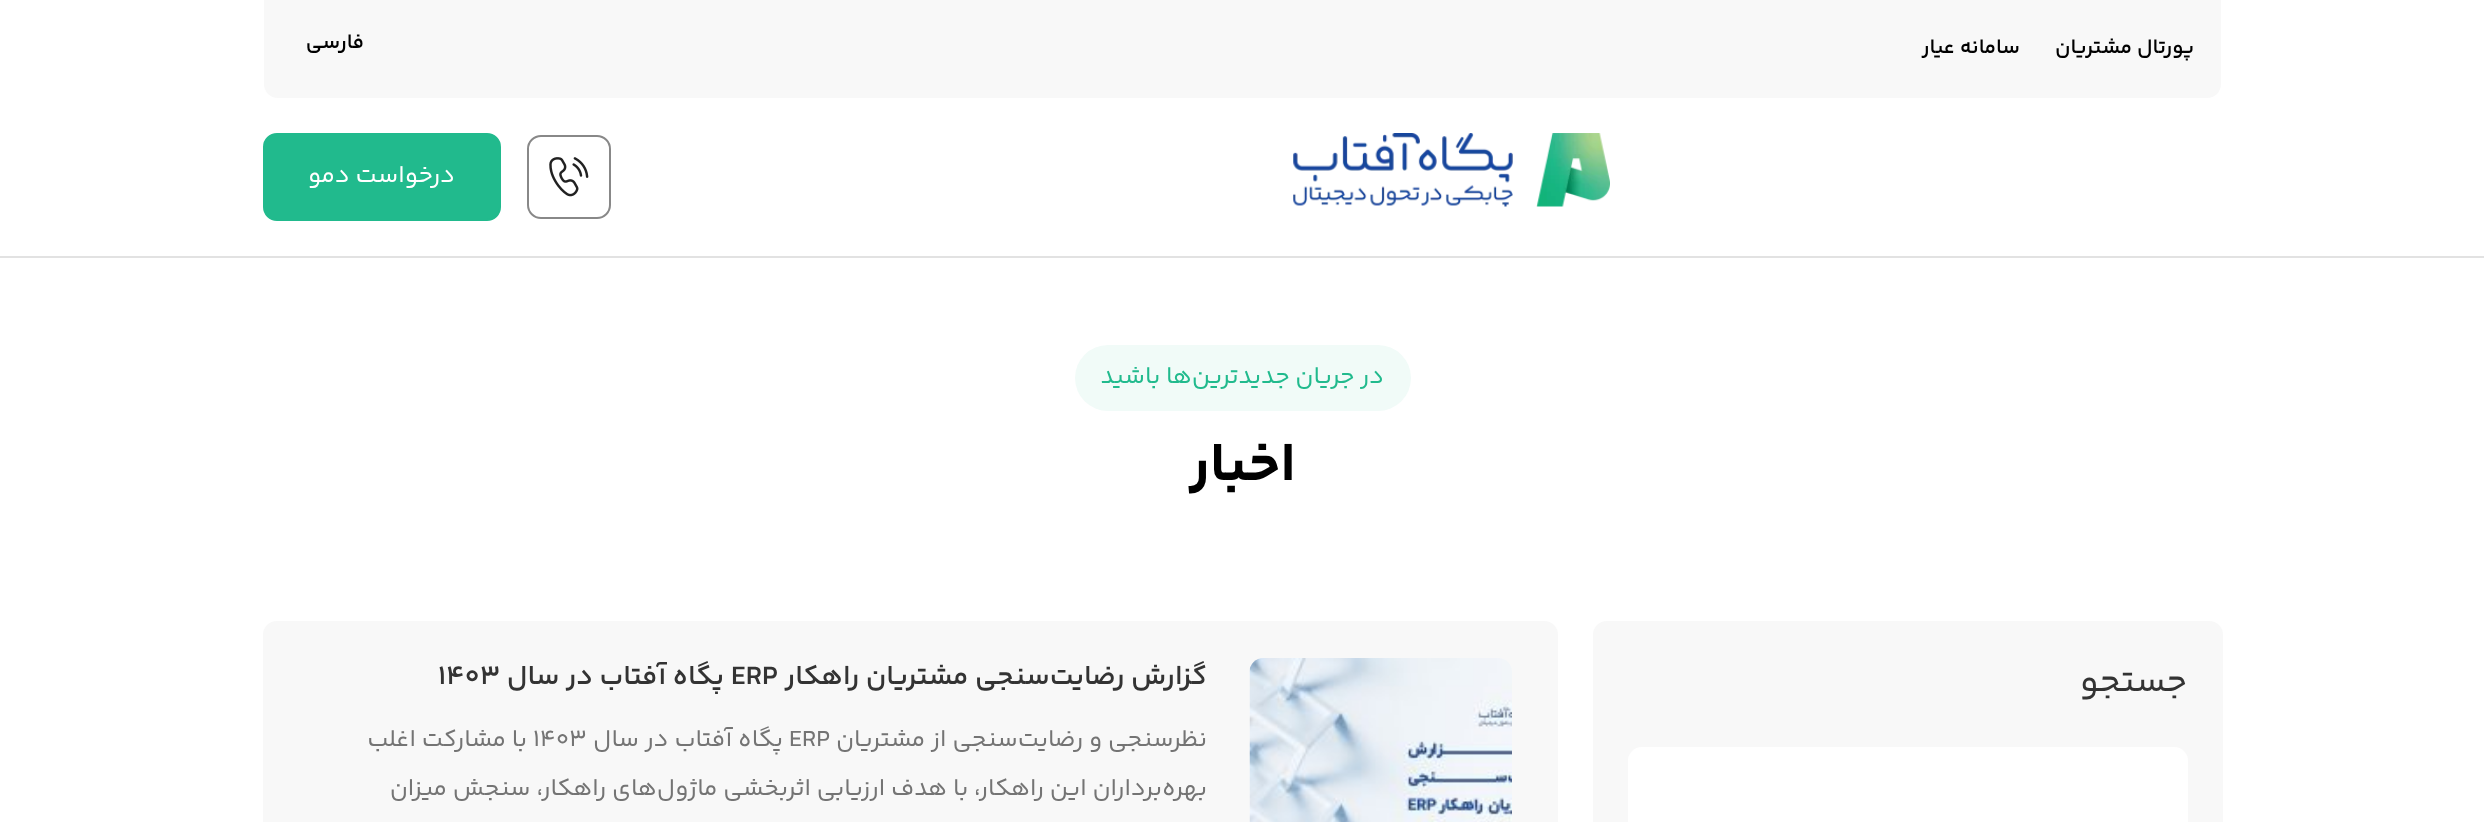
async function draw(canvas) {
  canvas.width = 2484
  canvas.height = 822
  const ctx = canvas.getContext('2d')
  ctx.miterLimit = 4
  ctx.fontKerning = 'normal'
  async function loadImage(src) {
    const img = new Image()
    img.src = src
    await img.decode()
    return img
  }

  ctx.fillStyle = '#fff'
  ctx.fillRect(0, 0, 2484, 822)
  ctx.fillStyle = '#f8f8f8'
  ctx.beginPath()
  ctx.roundRect(264, 0, 1957, 98, [0, 0, 14, 14])
  ctx.fill()
  ctx.direction = 'rtl'
  ctx.font = '600 21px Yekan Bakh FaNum'
  ctx.fillStyle = '#000'
  ctx.fillText('پورتال مشتریان', 2194, 53)
  ctx.fillText('سامانه عیار', 2020, 53)
  ctx.fillText('فارسی', 364, 48)
  ctx.fillStyle = '#e2e2e2'
  ctx.fillRect(0, 256, 2484, 2)
  ctx.drawImage(await loadImage('image0.png'), 1293, 133, 317, 74)
  ctx.beginPath()
  ctx.roundRect(528, 136, 82, 82, 13)
  ctx.strokeStyle = '#888'
  ctx.lineWidth = 2
  ctx.stroke()
  ctx.drawImage(await loadImage('image1.png'), 549, 157, 40, 40)
  ctx.fillStyle = '#21ba8d'
  ctx.beginPath()
  ctx.roundRect(264, 134, 236, 86, 13)
  ctx.fill()
  ctx.strokeStyle = '#21ba8d'
  ctx.stroke()
  ctx.font = '24.5px Yekan Bakh FaNum'
  ctx.fillStyle = '#fff'
  ctx.fillText('درخواست دمو', 455, 182)
  ctx.fillStyle = '#f1fbf8'
  ctx.beginPath()
  ctx.roundRect(1075, 345, 336, 66, 33)
  ctx.fill()
  ctx.fillStyle = '#21ba8d'
  ctx.fillText('در جریان جدید‌ترین‌ها باشید', 1384, 383)
  ctx.font = 'bold 56px Yekan Bakh FaNum'
  ctx.fillStyle = '#000'
  ctx.fillText('اخبار', 1296, 480)
  ctx.fillStyle = '#f8f8f8'
  ctx.beginPath()
  ctx.roundRect(1593, 621, 630, 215, 14)
  ctx.fill()
  ctx.font = '35px Yekan Bakh FaNum'
  ctx.fillStyle = '#333'
  ctx.fillText('جستجو', 2187, 691)
  ctx.fillStyle = '#fff'
  ctx.beginPath()
  ctx.roundRect(1628, 747, 560, 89, 14)
  ctx.fill()
  ctx.fillStyle = '#f8f8f8'
  ctx.beginPath()
  ctx.roundRect(263, 621, 1295, 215, 14)
  ctx.fill()
  ctx.drawImage(await loadImage('image2.png'), 1249, 658, 263, 164)
  ctx.font = '600 28px Yekan Bakh FaNum'
  ctx.fillStyle = '#333'
  ctx.fillText('گزارش رضایت‌سنجی مشتریان راهکار', 1207, 684)
  ctx.direction = 'ltr'
  ctx.fillText('ERP', 731, 684)
  ctx.direction = 'rtl'
  ctx.fillText('پگاه آفتاب در سال', 724, 684)
  ctx.direction = 'ltr'
  ctx.fillText('۱۴۰۳', 438, 684)
  ctx.direction = 'rtl'
  ctx.font = '24.5px Yekan Bakh FaNum'
  ctx.fillStyle = '#747474'
  ctx.fillText('نظرسنجی و رضایت‌سنجی از مشتریان', 1207, 746)
  ctx.direction = 'ltr'
  ctx.fillText('ERP', 789, 746)
  ctx.direction = 'rtl'
  ctx.fillText('پگاه آفتاب در سال', 783, 746)
  ctx.direction = 'ltr'
  ctx.fillText('۱۴۰۳', 533, 746)
  ctx.direction = 'rtl'
  ctx.fillText('با مشارکت اغلب', 527, 746)
  ctx.fillText('بهره‌برداران این راهکار، با هدف ارزیابی اثربخشی ماژول‌های راهکار، سنجش میزان', 1207, 795)
}

draw(document.querySelector('canvas'))
